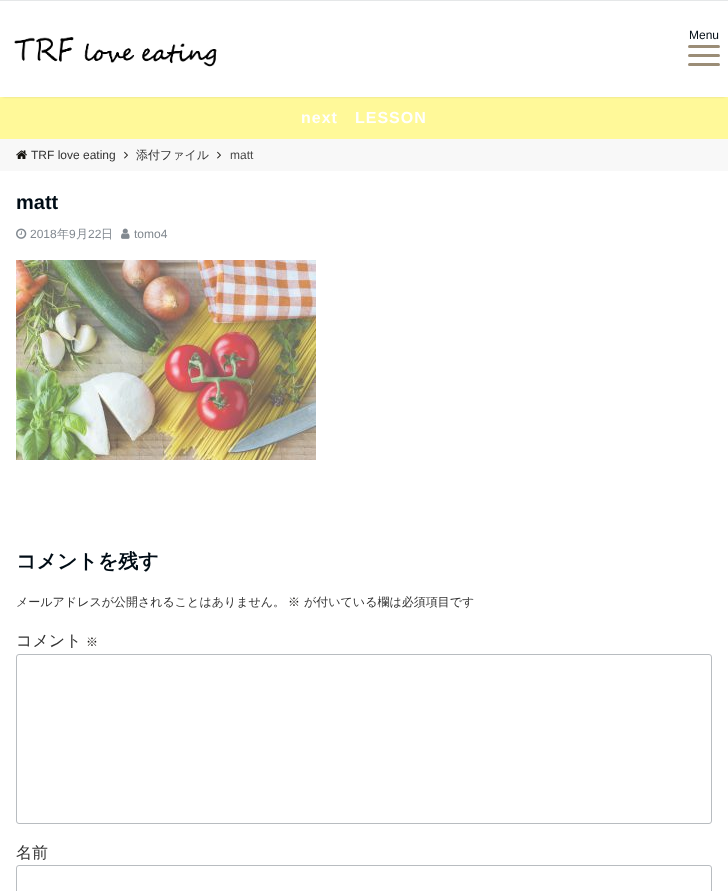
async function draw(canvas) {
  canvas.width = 728
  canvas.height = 891
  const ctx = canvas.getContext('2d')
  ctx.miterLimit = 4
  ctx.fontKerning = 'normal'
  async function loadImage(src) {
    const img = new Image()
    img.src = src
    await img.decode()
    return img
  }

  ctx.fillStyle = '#f8f8f8'
  ctx.fillRect(0, 0, 728, 891)
  ctx.fillStyle = '#e5e7e8'
  ctx.fillRect(0, 0, 728, 1)
  ctx.fillStyle = '#fff999'
  ctx.fillRect(0, 97, 728, 42)
  ctx.fillStyle = '#0000004d'
  ctx.filter = 'blur(1.5px)'
  ctx.beginPath()
  ctx.rect(3, 6, 722, 90)
  ctx.fill()
  ctx.filter = 'none'
  ctx.fillStyle = '#fff'
  ctx.fillRect(0, 1, 728, 96)
  ctx.font = '12px Liberation Sans'
  ctx.fillStyle = '#000c15'
  ctx.fillText('Menu', 689, 39)
  ctx.fillStyle = '#9b8d77'
  ctx.beginPath()
  ctx.roundRect(688, 45, 32, 3, 1.5)
  ctx.fill()
  ctx.beginPath()
  ctx.roundRect(688, 54, 32, 3, 1.5)
  ctx.fill()
  ctx.beginPath()
  ctx.roundRect(688, 63, 32, 3, 1.5)
  ctx.fill()
  ctx.drawImage(await loadImage('image0.png'), 14, 37, 203, 30)
  ctx.letterSpacing = '1px'
  ctx.font = 'bold 16px Liberation Sans'
  ctx.fillStyle = '#fff'
  ctx.fillText('next', 301, 123)
  ctx.fillText('LESSON', 355, 123)
  ctx.drawImage(await loadImage('image1.png'), 16, 150, 11, 9)
  ctx.letterSpacing = '0px'
  ctx.font = '12px Liberation Sans'
  ctx.fillStyle = '#333'
  ctx.fillText('TRF love eating', 31, 159)
  ctx.drawImage(await loadImage('image2.png'), 124, 151, 4, 8)
  ctx.font = '500 12px WenQuanYi Zen Hei'
  ctx.fillText('添付ファイル', 136, 159)
  ctx.drawImage(await loadImage('image2.png'), 217, 151, 4, 8)
  ctx.font = '12px Liberation Sans'
  ctx.fillStyle = '#484848'
  ctx.fillText('matt', 230, 159)
  ctx.fillStyle = '#fff'
  ctx.fillRect(0, 171, 728, 720)
  ctx.font = 'bold 20px Liberation Sans'
  ctx.fillStyle = '#000c15'
  ctx.fillText('matt', 16, 209)
  ctx.drawImage(await loadImage('image3.png'), 16, 228, 11, 11)
  ctx.font = '12px Liberation Sans'
  ctx.fillStyle = '#828990'
  ctx.fillText('2018', 30, 238)
  ctx.font = '500 12px WenQuanYi Zen Hei'
  ctx.fillText('年', 57, 238)
  ctx.font = '12px Liberation Sans'
  ctx.fillText('9', 69, 238)
  ctx.font = '500 12px WenQuanYi Zen Hei'
  ctx.fillText('月', 76, 238)
  ctx.font = '12px Liberation Sans'
  ctx.fillText('22', 88, 238)
  ctx.font = '500 12px WenQuanYi Zen Hei'
  ctx.fillText('日', 101, 238)
  ctx.drawImage(await loadImage('image4.png'), 121, 228, 9, 11)
  ctx.font = '12px Liberation Sans'
  ctx.fillText('tomo4', 134, 238)
  ctx.drawImage(await loadImage('image5.png'), 16, 260, 300, 200)
  ctx.font = 'bold 20px WenQuanYi Zen Hei'
  ctx.fillStyle = '#000c15'
  ctx.fillText('コメントを残す', 16, 568)
  ctx.font = '500 12px WenQuanYi Zen Hei'
  ctx.fillStyle = '#333'
  ctx.fillText('メールアドレスが公開されることはありません。', 16, 606)
  ctx.fillStyle = '#161410'
  ctx.fillText('※', 288, 606)
  ctx.fillStyle = '#333'
  ctx.fillText('が付いている欄は必須項目です', 304, 606)
  ctx.font = '500 16px WenQuanYi Zen Hei'
  ctx.fillText('コメント', 16, 646)
  ctx.font = '500 12px WenQuanYi Zen Hei'
  ctx.fillStyle = '#161410'
  ctx.fillText('※', 86, 646)
  ctx.beginPath()
  ctx.roundRect(16.5, 654.5, 695, 169, 2.5)
  ctx.strokeStyle = '#b8bcc0'
  ctx.stroke()
  ctx.font = '500 16px WenQuanYi Zen Hei'
  ctx.fillStyle = '#333'
  ctx.fillText('名前', 16, 858)
  ctx.beginPath()
  ctx.roundRect(16.5, 865.5, 695, 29, 2.5)
  ctx.stroke()
}

draw(document.querySelector('canvas'))
